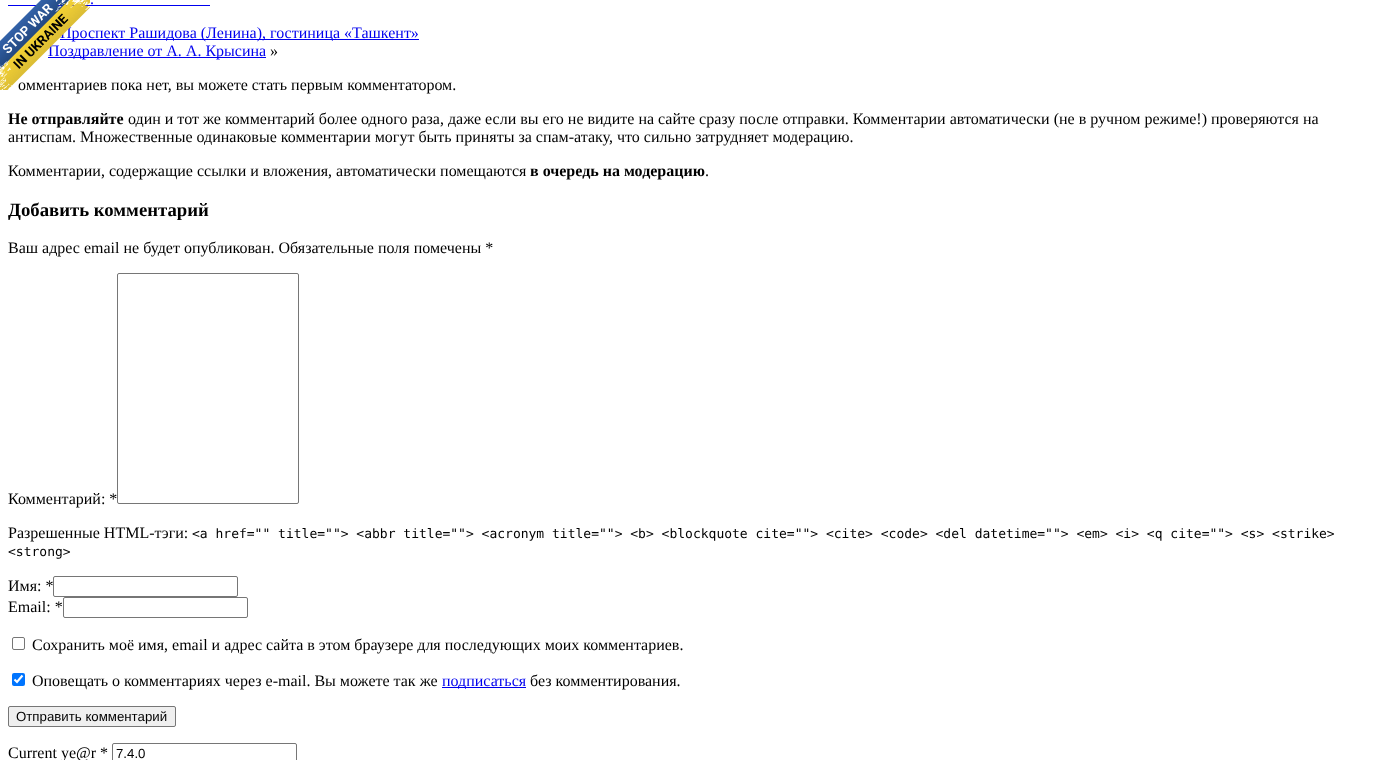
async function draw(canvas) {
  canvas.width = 1392
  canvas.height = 760
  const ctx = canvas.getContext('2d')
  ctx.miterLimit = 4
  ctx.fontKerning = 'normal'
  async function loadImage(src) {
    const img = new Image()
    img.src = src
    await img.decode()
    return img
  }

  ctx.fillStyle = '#fff'
  ctx.fillRect(0, 0, 1392, 760)
  ctx.fillStyle = '#00e'
  ctx.fillRect(8, 5, 202, 1)
  ctx.fillRect(60, 39, 359, 1)
  ctx.font = '16px Liberation Serif'
  ctx.fillText('Проспект Рашидова (Ленина), гостиница «Ташкент»', 60, 38)
  ctx.fillRect(48, 57, 218, 1)
  ctx.fillText('Поздравление от А. А. Крысина', 48, 56)
  ctx.fillStyle = '#000'
  ctx.fillText('омментариев пока нет, вы можете стать первым комментатором.', 18, 90)
  ctx.drawImage(await loadImage('image0.png'), 0, 0, 90, 90)
  ctx.fillStyle = '#00e'
  ctx.fillText('.', 90, 4)
  ctx.fillStyle = '#000'
  ctx.fillText('»', 270, 56)
  ctx.font = 'bold 16px Liberation Serif'
  ctx.fillText('Не отправляйте', 8, 124)
  ctx.font = '16px Liberation Serif'
  ctx.fillText('один и тот же комментарий более одного раза, даже если вы его не видите на сайте сразу после отправки. Комментарии автоматически (не в ручном режиме!) проверяются на', 128, 124)
  ctx.fillText('антиспам. Множественные одинаковые комментарии могут быть приняты за спам-атаку, что сильно затрудняет модерацию.', 8, 142)
  ctx.fillText('Комментарии, содержащие ссылки и вложения, автоматически помещаются', 8, 176)
  ctx.font = 'bold 16px Liberation Serif'
  ctx.fillText('в очередь на модерацию', 530, 176)
  ctx.font = '16px Liberation Serif'
  ctx.fillText('.', 705, 176)
  ctx.font = 'bold 18.75px Liberation Serif'
  ctx.fillText('Добавить комментарий', 8, 216)
  ctx.font = '16px Liberation Serif'
  ctx.fillText('Ваш адрес email не будет опубликован. Обязательные поля помечены *', 8, 253)
  ctx.fillText('Комментарий: *', 8, 504)
  ctx.beginPath()
  ctx.roundRect(117.5, 273.5, 181, 230, 1.5)
  ctx.strokeStyle = '#767676'
  ctx.stroke()
  ctx.fillText('Разрешенные HTML-тэги:', 8, 538)
  ctx.font = '13px DejaVu Sans Mono'
  ctx.fillText('<a href="" title=""> <abbr title=""> <acronym title=""> <b> <blockquote cite=""> <cite> <code> <del datetime=""> <em> <i> <q cite=""> <s> <strike>', 192, 538)
  ctx.fillText('<strong>', 8, 556)
  ctx.font = '16px Liberation Serif'
  ctx.fillText('Имя: *', 8, 591)
  ctx.beginPath()
  ctx.roundRect(53.5, 576.5, 184, 20, 1.5)
  ctx.stroke()
  ctx.fillText('Email: *', 8, 612)
  ctx.beginPath()
  ctx.roundRect(63.5, 597.5, 184, 20, 1.5)
  ctx.stroke()
  ctx.beginPath()
  ctx.roundRect(12.5, 637.5, 12, 12, 1.5)
  ctx.stroke()
  ctx.fillText('Сохранить моё имя, email и адрес сайта в этом браузере для последующих моих комментариев.', 32, 650)
  ctx.fillStyle = '#0075ff'
  ctx.beginPath()
  ctx.roundRect(12, 673, 13, 13, 2)
  ctx.fill()
  ctx.beginPath()
  ctx.moveTo(14.5, 679.5)
  ctx.lineTo(17, 682)
  ctx.lineTo(22.5, 675.5)
  ctx.strokeStyle = '#fff'
  ctx.lineWidth = 2.1
  ctx.stroke()
  ctx.fillStyle = '#000'
  ctx.fillText('Оповещать о комментариях через e-mail. Вы можете так же', 32, 686)
  ctx.fillStyle = '#00e'
  ctx.fillRect(442, 687, 84, 1)
  ctx.fillText('подписаться', 442, 686)
  ctx.fillStyle = '#000'
  ctx.fillText('без комментирования.', 530, 686)
  ctx.fillStyle = '#efefef'
  ctx.beginPath()
  ctx.roundRect(8.5, 706.5, 167, 20, 1.5)
  ctx.fill()
  ctx.strokeStyle = '#767676'
  ctx.lineWidth = 1
  ctx.stroke()
  ctx.font = '13.25px Liberation Sans'
  ctx.fillStyle = '#000'
  ctx.fillText('Отправить комментарий', 16, 721)
  ctx.font = '16px Liberation Serif'
  ctx.fillText('Current ye@r *', 8, 758)
  ctx.beginPath()
  ctx.roundRect(112.5, 743.5, 184, 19, 1.5)
  ctx.stroke()
  ctx.font = '13.25px Liberation Sans'
  ctx.fillText('7.4.0', 116, 758)
}

draw(document.querySelector('canvas'))
